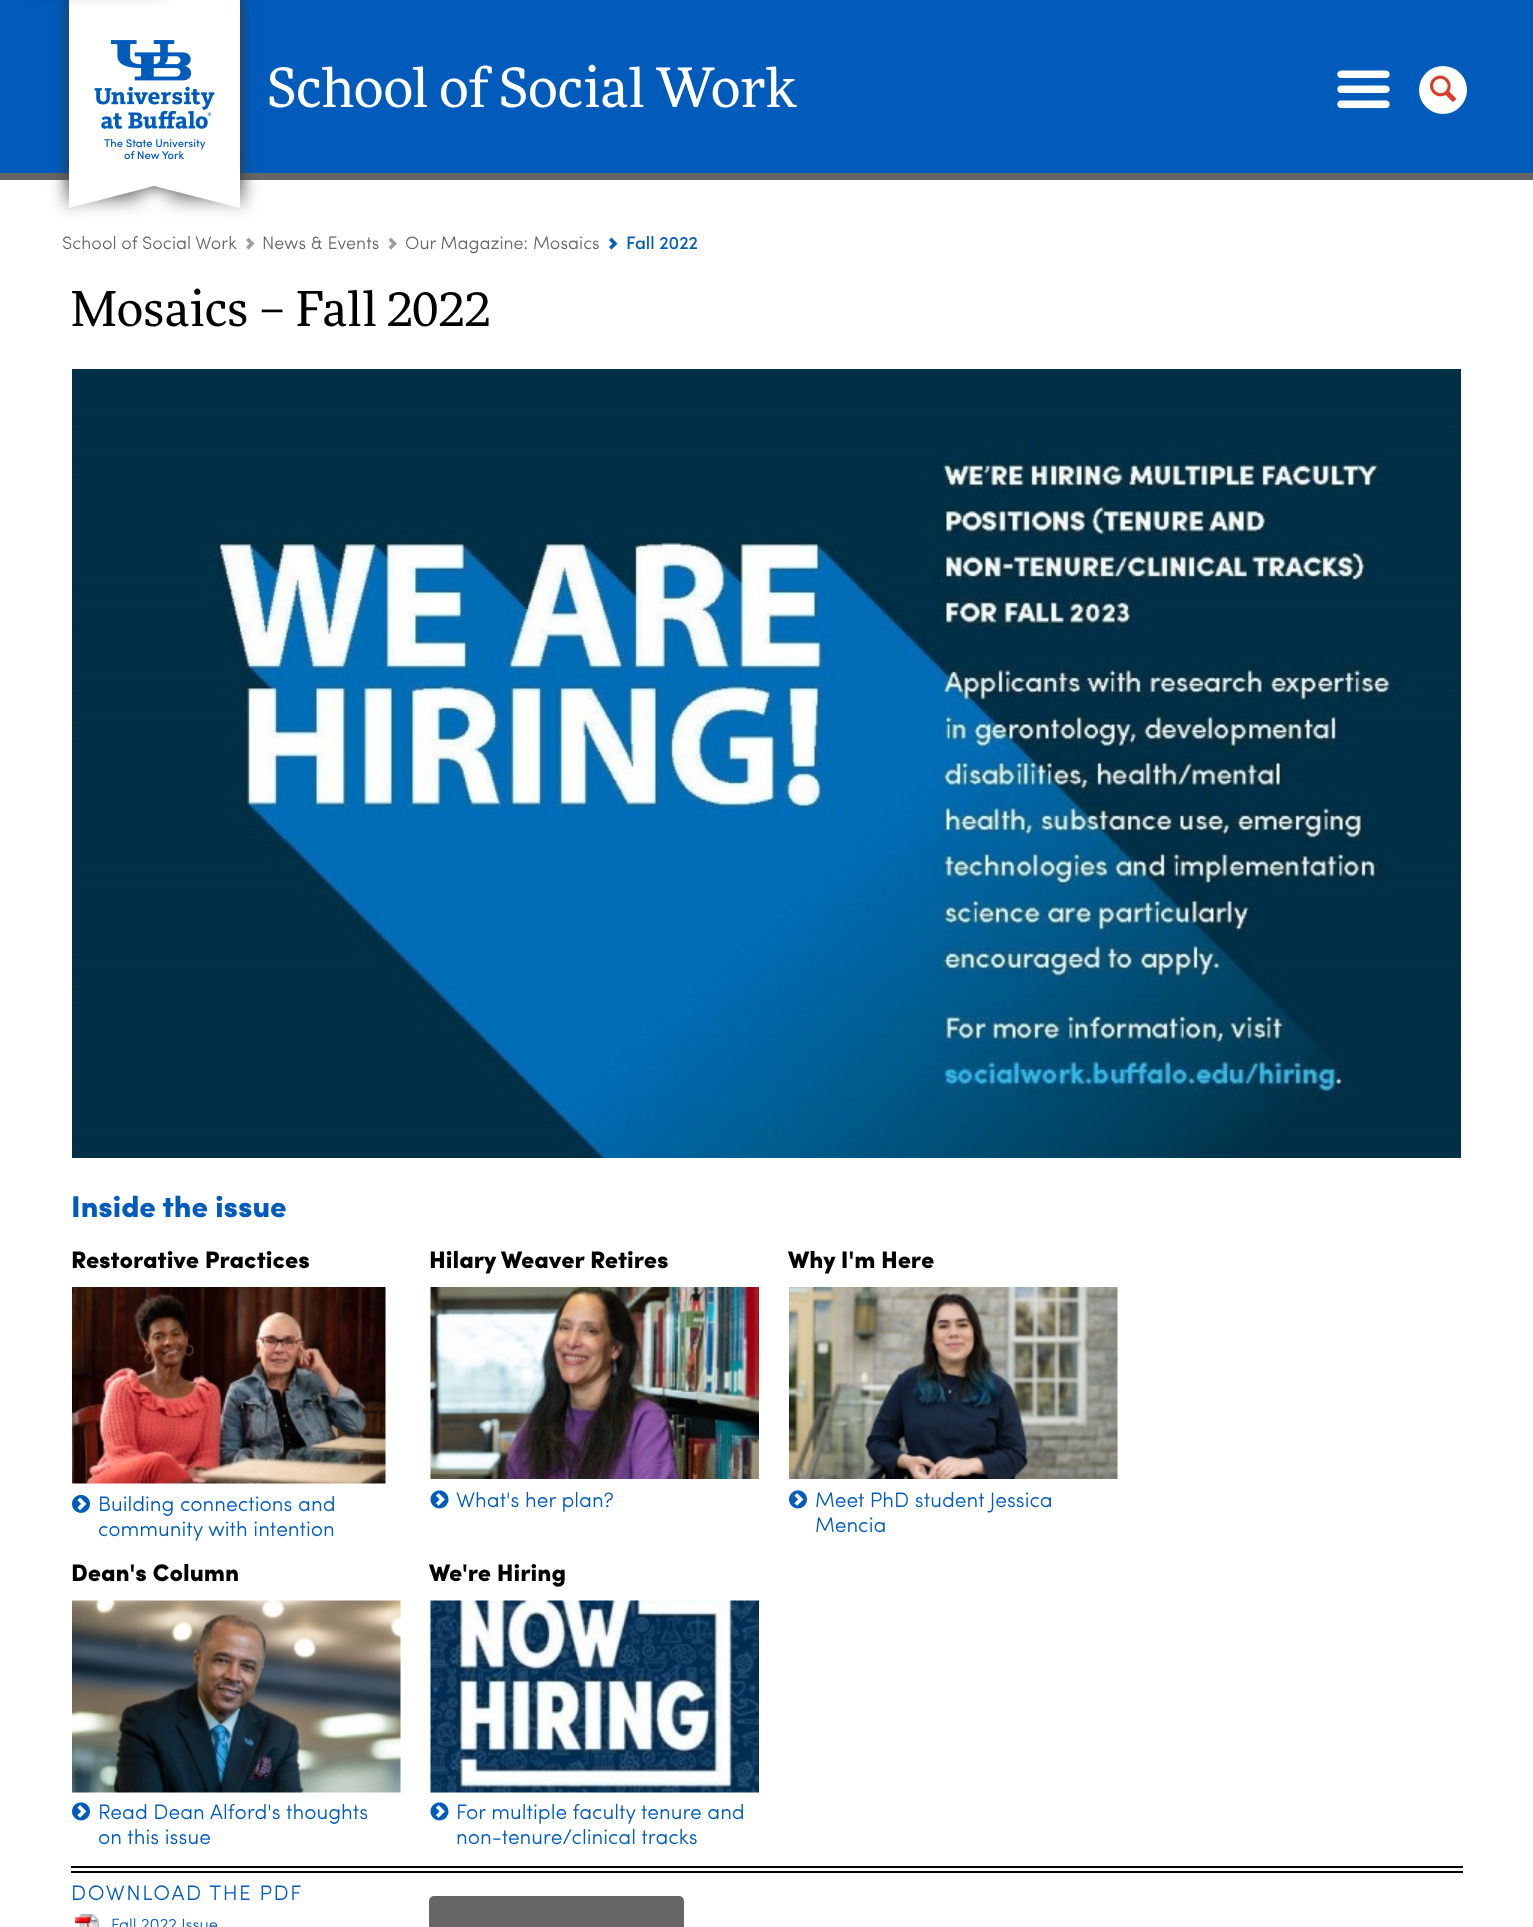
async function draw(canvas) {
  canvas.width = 1533
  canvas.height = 1927
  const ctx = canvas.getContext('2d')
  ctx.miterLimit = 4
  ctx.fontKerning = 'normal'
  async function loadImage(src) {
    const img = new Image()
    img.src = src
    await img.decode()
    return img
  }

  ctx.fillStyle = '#fff'
  ctx.fillRect(0, 0, 1533, 1927)
  ctx.fillStyle = '#005bbb'
  ctx.fillRect(0, 0, 1533, 173)
  ctx.fillStyle = '#666'
  ctx.fillRect(0, 173, 1533, 7)
  ctx.fillStyle = '#333'
  ctx.filter = 'blur(7.5px)'
  ctx.beginPath()
  ctx.rect(69, 0, 171, 186)
  ctx.fill()
  ctx.filter = 'none'
  ctx.fillStyle = '#555'
  ctx.filter = 'blur(10px)'
  ctx.beginPath()
  ctx.roundRect(69, 179, 71, 18, 3)
  ctx.fill()
  ctx.filter = 'none'
  ctx.filter = 'blur(10px)'
  ctx.beginPath()
  ctx.roundRect(170, 179, 70, 18, 3)
  ctx.fill()
  ctx.filter = 'none'
  ctx.fillStyle = '#333'
  ctx.filter = 'blur(7.5px)'
  ctx.beginPath()
  ctx.rect(69, 186, 2, 23)
  ctx.fill()
  ctx.filter = 'none'
  ctx.filter = 'blur(7.5px)'
  ctx.beginPath()
  ctx.rect(239, 186, 2, 23)
  ctx.fill()
  ctx.filter = 'none'
  ctx.fillStyle = '#fff'
  ctx.fillRect(69, 0, 171, 186)
  ctx.fillStyle = '#00000080'
  ctx.filter = 'blur(7.5px)'
  ctx.beginPath()
  ctx.rect(30, -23, 135, 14)
  ctx.fill()
  ctx.filter = 'none'
  ctx.font = '54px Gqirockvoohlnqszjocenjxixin'
  ctx.fillStyle = '#fff'
  ctx.fillText('School of Social Work', 267, 107)
  ctx.drawImage(await loadImage('image0.png'), 1337, 70, 53, 39)
  ctx.beginPath()
  ctx.arc(1443, 90, 24, 0, 2 * Math.PI)
  ctx.fill()
  ctx.drawImage(await loadImage('image1.png'), 1430, 75, 26, 27)
  ctx.drawImage(await loadImage('image2.png'), 94, 40, 121, 89)
  ctx.font = '500 11.25px Sofia'
  ctx.fillStyle = '#005bbb'
  ctx.fillText('The State University', 104, 147)
  ctx.fillText('of New York', 124, 159)
  ctx.fillStyle = '#fff'
  ctx.beginPath()
  ctx.moveTo(240, 186)
  ctx.lineTo(240, 208)
  ctx.lineTo(154, 186)
  ctx.closePath()
  ctx.fill()
  ctx.beginPath()
  ctx.moveTo(69, 208)
  ctx.lineTo(69, 186)
  ctx.lineTo(154, 186)
  ctx.closePath()
  ctx.fill()
  ctx.font = '18px Sofia'
  ctx.fillStyle = '#666'
  ctx.fillText('School of Social Work', 62, 249)
  ctx.drawImage(await loadImage('image3.png'), 246, 237, 9, 13)
  ctx.fillText('News & Events', 262, 249)
  ctx.drawImage(await loadImage('image4.png'), 388, 237, 9, 13)
  ctx.fillText('Our Magazine: Mosaics', 405, 249)
  ctx.drawImage(await loadImage('image5.png'), 609, 237, 9, 13)
  ctx.font = '500 18px Sofia'
  ctx.fillStyle = '#005bbb'
  ctx.fillText('Fall 2022', 626, 249)
  ctx.font = '48px Gqirockvoohlnqszjocenjxixin'
  ctx.fillStyle = '#000'
  ctx.fillText('Mosaics – Fall 2022', 71, 326)
  ctx.drawImage(await loadImage('image6.png'), 72, 369, 1389, 789)
  ctx.font = '30px "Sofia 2"'
  ctx.fillStyle = '#005bbb'
  ctx.fillText('Inside the issue', 71, 1217)
  ctx.font = '24px "Sofia 2"'
  ctx.fillStyle = '#000'
  ctx.fillText('Restorative Practices', 71, 1268)
  ctx.drawImage(await loadImage('image7.png'), 72, 1287, 314, 197)
  ctx.drawImage(await loadImage('image8.png'), 72, 1494, 18, 19)
  ctx.font = '21px Sofia'
  ctx.fillStyle = '#005bbb'
  ctx.fillText('Building connections and', 98, 1511)
  ctx.fillText('community with intention', 98, 1536)
  ctx.font = '24px "Sofia 2"'
  ctx.fillStyle = '#000'
  ctx.fillText('Hilary Weaver Retires', 429, 1268)
  ctx.drawImage(await loadImage('image9.png'), 430, 1287, 329, 192)
  ctx.drawImage(await loadImage('image10.png'), 430, 1490, 19, 19)
  ctx.font = '21px Sofia'
  ctx.fillStyle = '#005bbb'
  ctx.fillText('What\'s her plan?', 456, 1507)
  ctx.font = '24px "Sofia 2"'
  ctx.fillStyle = '#000'
  ctx.fillText('Why I\'m Here', 788, 1268)
  ctx.drawImage(await loadImage('image11.png'), 789, 1287, 329, 192)
  ctx.drawImage(await loadImage('image12.png'), 789, 1490, 18, 19)
  ctx.font = '21px Sofia'
  ctx.fillStyle = '#005bbb'
  ctx.fillText('Meet PhD student Jessica', 815, 1507)
  ctx.fillText('Mencia', 815, 1532)
  ctx.font = '24px "Sofia 2"'
  ctx.fillStyle = '#000'
  ctx.fillText('Dean\'s Column', 71, 1581)
  ctx.drawImage(await loadImage('image13.png'), 72, 1600, 329, 193)
  ctx.drawImage(await loadImage('image12.png'), 72, 1802, 18, 19)
  ctx.font = '21px Sofia'
  ctx.fillStyle = '#005bbb'
  ctx.fillText('Read Dean Alford\'s thoughts', 98, 1819)
  ctx.fillText('on this issue', 98, 1844)
  ctx.font = '24px "Sofia 2"'
  ctx.fillStyle = '#000'
  ctx.fillText('We\'re Hiring', 429, 1581)
  ctx.drawImage(await loadImage('image14.png'), 430, 1600, 329, 193)
  ctx.drawImage(await loadImage('image10.png'), 430, 1802, 19, 19)
  ctx.font = '21px Sofia'
  ctx.fillStyle = '#005bbb'
  ctx.fillText('For multiple faculty tenure and', 456, 1819)
  ctx.fillText('non-tenure/clinical tracks', 456, 1844)
  ctx.fillStyle = '#000'
  ctx.fillRect(71, 1866, 1392, 2)
  ctx.fillRect(71, 1871, 1392, 2)
  ctx.letterSpacing = '1.5px'
  ctx.fillStyle = '#005bbb'
  ctx.fillText('DOWNLOAD THE PDF', 71, 1900)
  ctx.drawImage(await loadImage('image15.png'), 75, 1914, 24, 13)
  ctx.letterSpacing = '0px'
  ctx.font = '16.5px Sofia'
  ctx.fillText('Fall 2022 Issue', 111, 1930)
  ctx.fillStyle = '#666'
  ctx.beginPath()
  ctx.roundRect(429, 1896, 255, 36, 5)
  ctx.fill()
}

draw(document.querySelector('canvas'))
